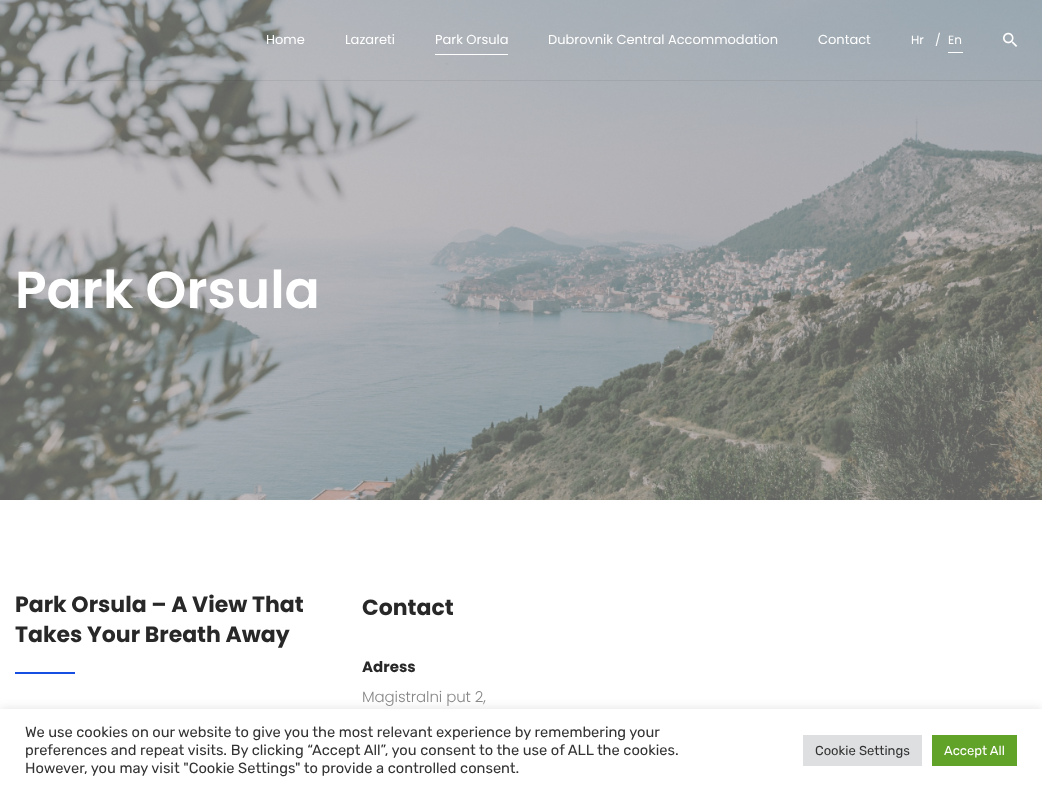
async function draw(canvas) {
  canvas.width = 1042
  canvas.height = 791
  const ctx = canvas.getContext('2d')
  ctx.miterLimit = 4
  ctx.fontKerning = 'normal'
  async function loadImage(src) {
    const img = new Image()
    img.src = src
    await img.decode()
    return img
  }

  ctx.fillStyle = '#fff'
  ctx.fillRect(0, 0, 1042, 791)
  ctx.drawImage(await loadImage('image1.png'), 0, 0, 1042, 500)
  ctx.fillStyle = '#0000000f'
  ctx.fillRect(0, 80, 1042, 1)
  ctx.font = '13px Poppins'
  ctx.fillStyle = '#fff'
  ctx.fillText('Home', 266, 44)
  ctx.fillText('Lazareti', 345, 44)
  ctx.fillText('Park Orsula', 435, 44)
  ctx.fillRect(435, 54, 73, 1)
  ctx.fillText('Dubrovnik Central Accommodation', 548, 44)
  ctx.fillText('Contact', 818, 44)
  ctx.font = '12px Poppins'
  ctx.fillText('Hr', 911, 44)
  ctx.fillText('/', 935, 44)
  ctx.fillText('En', 948, 44)
  ctx.fillRect(948, 52, 15, 1)
  ctx.drawImage(await loadImage('image0.png'), 1003, 32, 15, 15)
  ctx.font = '600 52px Poppins'
  ctx.fillText('Park Orsula', 15, 308)
  ctx.font = 'bold 22px Poppins'
  ctx.fillStyle = '#282828'
  ctx.fillText('Park Orsula – A View That', 15, 612)
  ctx.fillText('Takes Your Breath Away', 15, 642)
  ctx.fillStyle = '#174ee2'
  ctx.fillRect(15, 672, 60, 2)
  ctx.fillStyle = '#282828'
  ctx.fillText('Contact', 362, 615)
  ctx.font = 'bold 15px Poppins'
  ctx.fillText('Adress', 362, 672)
  ctx.letterSpacing = '-0.1px'
  ctx.font = '300 15px Poppins'
  ctx.fillStyle = '#888'
  ctx.fillText('Magistralni put 2,', 362, 702)
  ctx.fillStyle = '#acabab4d'
  ctx.filter = 'blur(5px)'
  ctx.beginPath()
  ctx.rect(0, 708, 1042, 82)
  ctx.fill()
  ctx.filter = 'none'
  ctx.fillStyle = '#fff'
  ctx.fillRect(0, 709, 1042, 82)
  ctx.letterSpacing = '0px'
  ctx.font = '14.65px Rubik'
  ctx.fillStyle = '#333'
  ctx.fillText('We use cookies on our website to give you the most relevant experience by remembering your', 25, 737)
  ctx.fillText('preferences and repeat visits. By clicking “Accept All”, you consent to the use of ALL the cookies.', 25, 755)
  ctx.fillText('However, you may visit "Cookie Settings" to provide a controlled consent.', 25, 773)
  ctx.fillStyle = '#dedfe0'
  ctx.fillRect(803, 735, 119, 31)
  ctx.font = '13px Rubik'
  ctx.fillStyle = '#333'
  ctx.fillText('Cookie Settings', 815, 755)
  ctx.fillStyle = '#61a229'
  ctx.fillRect(932, 735, 85, 31)
  ctx.fillStyle = '#fff'
  ctx.fillText('Accept All', 944, 755)
}

draw(document.querySelector('canvas'))
